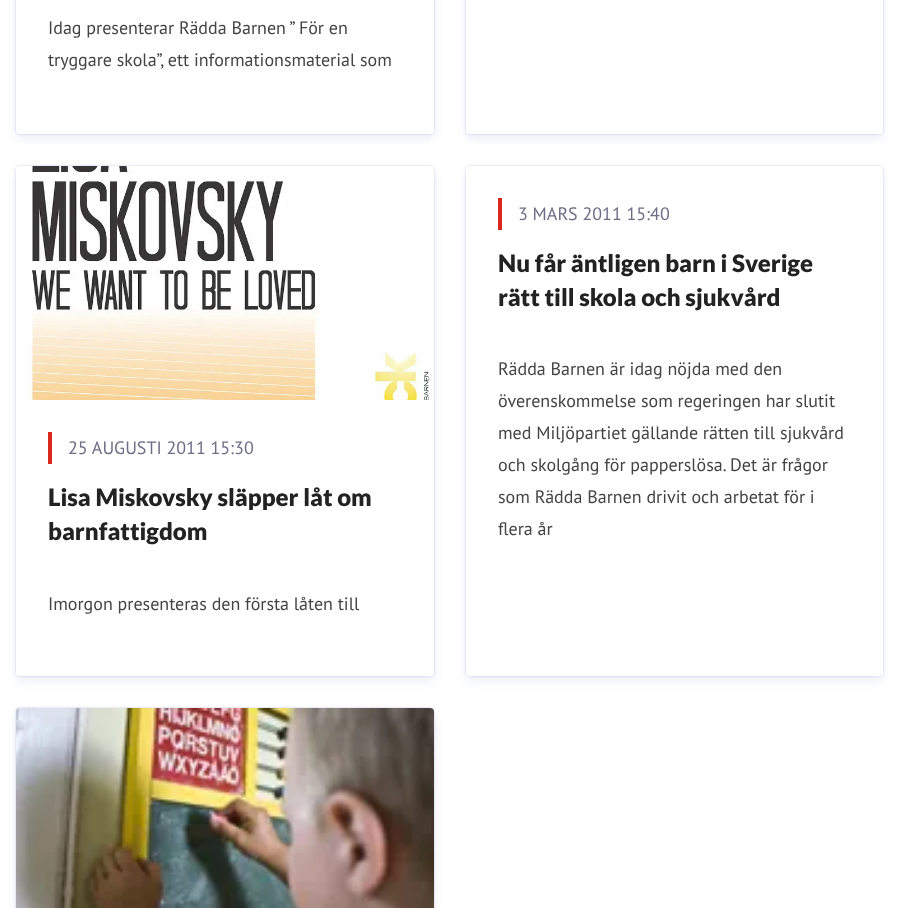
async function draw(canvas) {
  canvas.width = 899
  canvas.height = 908
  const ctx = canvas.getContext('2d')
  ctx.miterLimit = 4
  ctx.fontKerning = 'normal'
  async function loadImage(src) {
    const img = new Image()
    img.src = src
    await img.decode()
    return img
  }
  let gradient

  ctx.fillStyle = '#fff'
  ctx.fillRect(0, 0, 899, 908)
  ctx.fillStyle = '#3149a424'
  ctx.filter = 'blur(1px)'
  ctx.beginPath()
  ctx.roundRect(16, -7, 418, 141, 4)
  ctx.fill()
  ctx.filter = 'none'
  ctx.fillStyle = '#3149a41a'
  ctx.filter = 'blur(1.5px)'
  ctx.beginPath()
  ctx.roundRect(16, -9, 418, 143, 4)
  ctx.fill()
  ctx.filter = 'none'
  ctx.fillStyle = '#3149a414'
  ctx.filter = 'blur(5px)'
  ctx.beginPath()
  ctx.roundRect(16, -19, 418, 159, 4)
  ctx.fill()
  ctx.filter = 'none'
  ctx.fillStyle = '#fff'
  ctx.beginPath()
  ctx.roundRect(16, -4, 418, 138, 4)
  ctx.fill()
  ctx.font = '18px PT Sans'
  ctx.fillStyle = '#444'
  ctx.fillText('Idag presenterar Rädda Barnen ” För en', 48, 34)
  ctx.fillText('tryggare skola”, ett informationsmaterial som', 48, 66)
  gradient = ctx.createLinearGradient(225, 70, 225, 134)
  gradient.addColorStop(0, '#ffffff00')
  gradient.addColorStop(0.25, '#ffffffb3')
  gradient.addColorStop(0.5, '#fff')
  ctx.fillStyle = gradient
  ctx.beginPath()
  ctx.roundRect(16, 70, 418, 64, [0, 0, 4, 4])
  ctx.fill()
  ctx.fillStyle = '#3149a424'
  ctx.filter = 'blur(1px)'
  ctx.beginPath()
  ctx.roundRect(466, -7, 417, 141, 4)
  ctx.fill()
  ctx.filter = 'none'
  ctx.fillStyle = '#3149a41a'
  ctx.filter = 'blur(1.5px)'
  ctx.beginPath()
  ctx.roundRect(466, -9, 417, 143, 4)
  ctx.fill()
  ctx.filter = 'none'
  ctx.fillStyle = '#3149a414'
  ctx.filter = 'blur(5px)'
  ctx.beginPath()
  ctx.roundRect(466, -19, 417, 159, 4)
  ctx.fill()
  ctx.filter = 'none'
  ctx.fillStyle = '#fff'
  ctx.beginPath()
  ctx.roundRect(466, -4, 417, 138, 4)
  ctx.fill()
  gradient = ctx.createLinearGradient(675, 70, 675, 134)
  gradient.addColorStop(0, '#ffffff00')
  gradient.addColorStop(0.25, '#ffffffb3')
  gradient.addColorStop(0.5, '#fff')
  ctx.fillStyle = gradient
  ctx.beginPath()
  ctx.roundRect(466, 70, 417, 64, [0, 0, 4, 4])
  ctx.fill()
  ctx.fillStyle = '#3149a424'
  ctx.filter = 'blur(1px)'
  ctx.beginPath()
  ctx.roundRect(16, 166, 418, 510, 4)
  ctx.fill()
  ctx.filter = 'none'
  ctx.fillStyle = '#3149a41a'
  ctx.filter = 'blur(1.5px)'
  ctx.beginPath()
  ctx.roundRect(16, 166, 418, 510, 4)
  ctx.fill()
  ctx.filter = 'none'
  ctx.fillStyle = '#3149a414'
  ctx.filter = 'blur(5px)'
  ctx.beginPath()
  ctx.roundRect(16, 172, 418, 510, 4)
  ctx.fill()
  ctx.filter = 'none'
  ctx.fillStyle = '#fff'
  ctx.beginPath()
  ctx.roundRect(16, 166, 418, 510, 4)
  ctx.fill()
  ctx.drawImage(await loadImage('image0.png'), 16, 166, 418, 4)
  ctx.drawImage(await loadImage('image1.png'), 16, 166, 418, 234)
  ctx.fillStyle = '#da291c'
  ctx.fillRect(48, 432, 4, 32)
  ctx.fillStyle = '#6e6d86'
  ctx.fillText('25 AUGUSTI 2011 15:30', 68, 454)
  ctx.font = '900 24px Lato'
  ctx.fillStyle = '#222'
  ctx.fillText('Lisa Miskovsky släpper låt om', 48, 506)
  ctx.fillText('barnfattigdom', 48, 540)
  ctx.font = '18px PT Sans'
  ctx.fillStyle = '#444'
  ctx.fillText('Imorgon presenteras den första låten till', 48, 610)
  gradient = ctx.createLinearGradient(225, 612, 225, 676)
  gradient.addColorStop(0, '#ffffff00')
  gradient.addColorStop(0.25, '#ffffffb3')
  gradient.addColorStop(0.5, '#fff')
  ctx.fillStyle = gradient
  ctx.beginPath()
  ctx.roundRect(16, 612, 418, 64, [0, 0, 4, 4])
  ctx.fill()
  ctx.fillStyle = '#3149a424'
  ctx.filter = 'blur(1px)'
  ctx.beginPath()
  ctx.roundRect(466, 166, 417, 510, 4)
  ctx.fill()
  ctx.filter = 'none'
  ctx.fillStyle = '#3149a41a'
  ctx.filter = 'blur(1.5px)'
  ctx.beginPath()
  ctx.roundRect(466, 166, 417, 510, 4)
  ctx.fill()
  ctx.filter = 'none'
  ctx.fillStyle = '#3149a414'
  ctx.filter = 'blur(5px)'
  ctx.beginPath()
  ctx.roundRect(466, 172, 417, 510, 4)
  ctx.fill()
  ctx.filter = 'none'
  ctx.fillStyle = '#fff'
  ctx.beginPath()
  ctx.roundRect(466, 166, 417, 510, 4)
  ctx.fill()
  ctx.beginPath()
  ctx.roundRect(466, 166, 417, 411, [4, 4, 0, 0])
  ctx.fill()
  ctx.fillStyle = '#da291c'
  ctx.fillRect(498, 198, 4, 32)
  ctx.fillStyle = '#6e6d86'
  ctx.fillText('3 MARS 2011 15:40', 518, 220)
  ctx.font = '900 24px Lato'
  ctx.fillStyle = '#222'
  ctx.fillText('Nu får äntligen barn i Sverige', 498, 272)
  ctx.fillText('rätt till skola och sjukvård', 498, 306)
  ctx.font = '18px PT Sans'
  ctx.fillStyle = '#444'
  ctx.fillText('Rädda Barnen är idag nöjda med den', 498, 375)
  ctx.fillText('överenskommelse som regeringen har slutit', 498, 407)
  ctx.fillText('med Miljöpartiet gällande rätten till sjukvård', 498, 439)
  ctx.fillText('och skolgång för papperslösa. Det är frågor', 498, 471)
  ctx.fillText('som Rädda Barnen drivit och arbetat för i', 498, 503)
  ctx.fillText('flera år', 498, 535)
  gradient = ctx.createLinearGradient(675, 612, 675, 676)
  gradient.addColorStop(0, '#ffffff00')
  gradient.addColorStop(0.25, '#ffffffb3')
  gradient.addColorStop(0.5, '#fff')
  ctx.fillStyle = gradient
  ctx.beginPath()
  ctx.roundRect(466, 612, 417, 64, [0, 0, 4, 4])
  ctx.fill()
  ctx.fillStyle = '#3149a424'
  ctx.filter = 'blur(1px)'
  ctx.beginPath()
  ctx.roundRect(16, 708, 418, 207, 4)
  ctx.fill()
  ctx.filter = 'none'
  ctx.fillStyle = '#3149a41a'
  ctx.filter = 'blur(1.5px)'
  ctx.beginPath()
  ctx.roundRect(16, 708, 418, 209, 4)
  ctx.fill()
  ctx.filter = 'none'
  ctx.fillStyle = '#3149a414'
  ctx.filter = 'blur(5px)'
  ctx.beginPath()
  ctx.roundRect(16, 714, 418, 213, 4)
  ctx.fill()
  ctx.filter = 'none'
  ctx.drawImage(await loadImage('image0.png'), 16, 708, 418, 4)
  ctx.drawImage(await loadImage('image2.png'), 16, 708, 418, 200)
}

draw(document.querySelector('canvas'))
